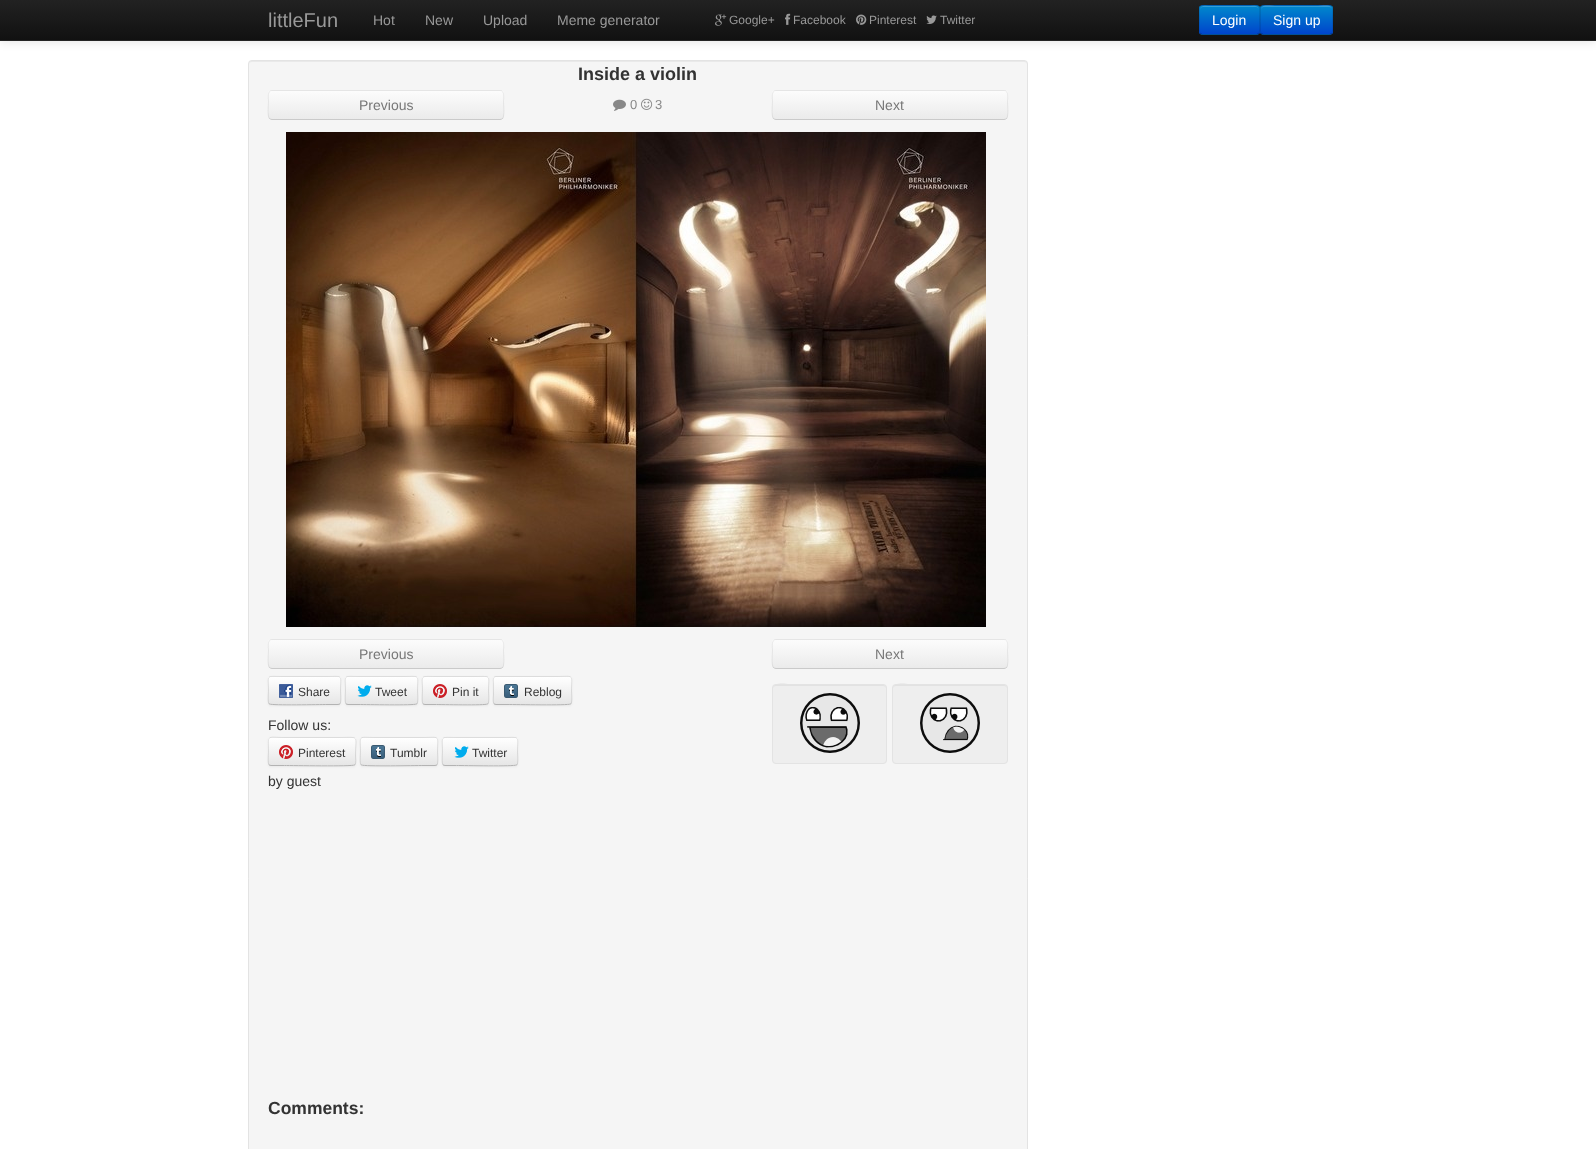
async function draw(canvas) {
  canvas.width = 1596
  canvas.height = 1149
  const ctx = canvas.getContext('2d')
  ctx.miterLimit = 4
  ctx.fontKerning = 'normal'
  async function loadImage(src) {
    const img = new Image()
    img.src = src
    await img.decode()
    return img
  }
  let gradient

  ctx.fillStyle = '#fff'
  ctx.fillRect(0, 0, 1596, 1149)
  ctx.fillStyle = '#0000001a'
  ctx.filter = 'blur(5px)'
  ctx.beginPath()
  ctx.rect(0, 1, 1596, 41)
  ctx.fill()
  ctx.filter = 'none'
  gradient = ctx.createLinearGradient(798, 0, 798, 40)
  gradient.addColorStop(0, '#222')
  gradient.addColorStop(1, '#111')
  ctx.fillStyle = gradient
  ctx.fillRect(0, 0, 1596, 40)
  ctx.fillStyle = '#252525'
  ctx.fillRect(0, 40, 1596, 1)
  ctx.font = '20px Liberation Sans'
  ctx.fillStyle = '#999'
  ctx.fillText('littleFun', 268, 27)
  ctx.font = '14px Liberation Sans'
  ctx.fillText('Hot', 373, 25)
  ctx.fillText('New', 425, 25)
  ctx.fillText('Upload', 483, 25)
  ctx.fillText('Meme generator', 557, 25)
  ctx.drawImage(await loadImage('image0.png'), 715, 14, 12, 12)
  ctx.font = '12px Liberation Sans'
  ctx.fillText('Google+', 729, 24)
  ctx.drawImage(await loadImage('image1.png'), 785, 13, 6, 12)
  ctx.fillText('Facebook', 793, 24)
  ctx.drawImage(await loadImage('image2.png'), 856, 14, 11, 11)
  ctx.fillText('Pinterest', 869, 24)
  ctx.drawImage(await loadImage('image3.png'), 926, 15, 11, 9)
  ctx.fillText('Twitter', 940, 24)
  ctx.fillStyle = '#006dcc'
  ctx.beginPath()
  ctx.roundRect(1260, 5, 73, 30, 4)
  ctx.fill()
  ctx.save()
  ctx.beginPath()
  ctx.roundRect(1260, 5, 73, 30, 4)
  ctx.clip()
  gradient = ctx.createLinearGradient(1297, 6, 1297, 34)
  gradient.addColorStop(0, '#08c')
  gradient.addColorStop(1, '#04c')
  ctx.fillStyle = gradient
  ctx.fillRect(1260, 6, 73, 28)
  ctx.restore()
  ctx.fillStyle = '#ffffff33'
  ctx.beginPath()
  ctx.moveTo(1264, 7)
  ctx.lineTo(1329, 7)
  ctx.bezierCurveTo(1331, 7, 1332, 8, 1332, 10)
  ctx.bezierCurveTo(1332, 3, 1322, 6, 1318, 6)
  ctx.lineTo(1275, 6)
  ctx.bezierCurveTo(1271, 6, 1261, 3, 1261, 10)
  ctx.bezierCurveTo(1261, 8, 1262, 7, 1264, 7)
  ctx.closePath()
  ctx.fill()
  ctx.beginPath()
  ctx.moveTo(1331.5, 33.5)
  ctx.lineTo(1329.5, 34.5)
  ctx.lineTo(1263.5, 34.5)
  ctx.lineTo(1261.5, 33.5)
  ctx.strokeStyle = '#00000040'
  ctx.stroke()
  ctx.beginPath()
  ctx.moveTo(1261.5, 33.5)
  ctx.bezierCurveTo(1259.5, 31.5, 1260.5, 23, 1260.5, 20)
  ctx.bezierCurveTo(1260.5, 3.5, 1258, 5.5, 1275, 5.5)
  ctx.lineTo(1318, 5.5)
  ctx.bezierCurveTo(1335, 5.5, 1332.5, 3.5, 1332.5, 20)
  ctx.bezierCurveTo(1332.5, 23, 1333.5, 31.5, 1331.5, 33.5)
  ctx.strokeStyle = '#0000001a'
  ctx.stroke()
  ctx.fillStyle = '#006dcc'
  ctx.beginPath()
  ctx.roundRect(1199, 5, 61, 30, 4)
  ctx.fill()
  ctx.save()
  ctx.beginPath()
  ctx.roundRect(1199, 5, 61, 30, 4)
  ctx.clip()
  gradient = ctx.createLinearGradient(1230, 6, 1230, 34)
  gradient.addColorStop(0, '#08c')
  gradient.addColorStop(1, '#04c')
  ctx.fillStyle = gradient
  ctx.fillRect(1199, 6, 61, 28)
  ctx.restore()
  ctx.fillStyle = '#339fd6'
  ctx.beginPath()
  ctx.moveTo(1203, 7)
  ctx.lineTo(1256, 7)
  ctx.bezierCurveTo(1258, 7, 1259, 8, 1259, 10)
  ctx.bezierCurveTo(1259, 4, 1252, 6, 1247, 6)
  ctx.lineTo(1212, 6)
  ctx.bezierCurveTo(1207, 6, 1200, 4, 1200, 10)
  ctx.bezierCurveTo(1200, 8, 1201, 7, 1203, 7)
  ctx.closePath()
  ctx.fill()
  ctx.beginPath()
  ctx.moveTo(1258.5, 33.5)
  ctx.lineTo(1256.5, 34.5)
  ctx.lineTo(1202.5, 34.5)
  ctx.lineTo(1200.5, 33.5)
  ctx.strokeStyle = '#00000040'
  ctx.stroke()
  ctx.beginPath()
  ctx.moveTo(1200.5, 33.5)
  ctx.bezierCurveTo(1198.5, 31.5, 1199.5, 23, 1199.5, 20)
  ctx.bezierCurveTo(1199.5, 4.5, 1197, 5.5, 1212, 5.5)
  ctx.lineTo(1247, 5.5)
  ctx.bezierCurveTo(1262, 5.5, 1259.5, 4.5, 1259.5, 20)
  ctx.bezierCurveTo(1259.5, 23, 1260.5, 31.5, 1258.5, 33.5)
  ctx.strokeStyle = '#0000001a'
  ctx.stroke()
  ctx.font = '14px Liberation Sans'
  ctx.fillStyle = '#fff'
  ctx.fillText('Login', 1212, 25)
  ctx.fillText('Sign up', 1273, 25)
  ctx.fillStyle = '#f5f5f5'
  ctx.beginPath()
  ctx.roundRect(248, 60, 780, 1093, 4)
  ctx.fill()
  ctx.fillStyle = '#e9e9e9'
  ctx.beginPath()
  ctx.moveTo(252, 62)
  ctx.lineTo(1024, 62)
  ctx.bezierCurveTo(1026, 62, 1027, 63, 1027, 65)
  ctx.bezierCurveTo(1027, 63, 1026, 61, 1024, 61)
  ctx.lineTo(252, 61)
  ctx.bezierCurveTo(250, 61, 249, 63, 249, 65)
  ctx.bezierCurveTo(249, 63, 250, 62, 252, 62)
  ctx.closePath()
  ctx.fill()
  ctx.beginPath()
  ctx.roundRect(248.5, 60.5, 779, 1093, 3.5)
  ctx.strokeStyle = '#e3e3e3'
  ctx.stroke()
  ctx.font = 'bold 18px Liberation Sans'
  ctx.fillStyle = '#333'
  ctx.fillText('Inside a violin', 578, 80)
  ctx.save()
  ctx.beginPath()
  ctx.roundRect(268, 90, 236, 30, 4)
  ctx.clip()
  gradient = ctx.createLinearGradient(386, 91, 386, 119)
  gradient.addColorStop(0, '#fcfcfc')
  gradient.addColorStop(1, '#ebebeb')
  ctx.fillStyle = gradient
  ctx.fillRect(268, 91, 236, 28)
  ctx.restore()
  ctx.beginPath()
  ctx.moveTo(502.5, 118.5)
  ctx.bezierCurveTo(502, 119, 501, 119.5, 500, 119.5)
  ctx.lineTo(272, 119.5)
  ctx.bezierCurveTo(271, 119.5, 270, 119, 269.5, 118.5)
  ctx.strokeStyle = '#cacaca'
  ctx.stroke()
  ctx.beginPath()
  ctx.moveTo(269.5, 118.5)
  ctx.bezierCurveTo(267, 116, 268.5, 104.5, 268.5, 101.5)
  ctx.bezierCurveTo(268.5, 98.5, 267, 90.5, 272, 90.5)
  ctx.lineTo(500, 90.5)
  ctx.bezierCurveTo(505, 90.5, 503.5, 98.5, 503.5, 101.5)
  ctx.bezierCurveTo(503.5, 104.5, 505, 116, 502.5, 118.5)
  ctx.strokeStyle = '#5656561a'
  ctx.stroke()
  ctx.font = '14px Liberation Sans'
  ctx.fillStyle = '#777'
  ctx.fillText('Previous', 359, 110)
  ctx.drawImage(await loadImage('image4.png'), 613, 99, 13, 12)
  ctx.font = '13px Liberation Sans'
  ctx.fillStyle = '#888'
  ctx.fillText('0', 630, 109)
  ctx.drawImage(await loadImage('image5.png'), 641, 98, 12, 12)
  ctx.fillText('3', 655, 109)
  ctx.save()
  ctx.beginPath()
  ctx.roundRect(772, 90, 236, 30, 4)
  ctx.clip()
  gradient = ctx.createLinearGradient(890, 91, 890, 119)
  gradient.addColorStop(0, '#fcfcfc')
  gradient.addColorStop(1, '#ebebeb')
  ctx.fillStyle = gradient
  ctx.fillRect(772, 91, 236, 28)
  ctx.restore()
  ctx.beginPath()
  ctx.moveTo(1006.5, 118.5)
  ctx.bezierCurveTo(1006, 119, 1005, 119.5, 1004, 119.5)
  ctx.lineTo(776, 119.5)
  ctx.bezierCurveTo(775, 119.5, 774, 119, 773.5, 118.5)
  ctx.strokeStyle = '#cacaca'
  ctx.stroke()
  ctx.beginPath()
  ctx.moveTo(773.5, 118.5)
  ctx.bezierCurveTo(771, 116, 772.5, 104.5, 772.5, 101.5)
  ctx.bezierCurveTo(772.5, 98.5, 771, 90.5, 776, 90.5)
  ctx.lineTo(1004, 90.5)
  ctx.bezierCurveTo(1009, 90.5, 1007.5, 98.5, 1007.5, 101.5)
  ctx.bezierCurveTo(1007.5, 104.5, 1009, 116, 1006.5, 118.5)
  ctx.strokeStyle = '#5656561a'
  ctx.stroke()
  ctx.font = '14px Liberation Sans'
  ctx.fillStyle = '#777'
  ctx.fillText('Next', 875, 110)
  ctx.drawImage(await loadImage('image6.png'), 286, 132, 700, 495)
  ctx.save()
  ctx.beginPath()
  ctx.roundRect(268, 639, 236, 30, 4)
  ctx.clip()
  gradient = ctx.createLinearGradient(386, 640, 386, 668)
  gradient.addColorStop(0, '#fcfcfc')
  gradient.addColorStop(1, '#ebebeb')
  ctx.fillStyle = gradient
  ctx.fillRect(268, 640, 236, 28)
  ctx.restore()
  ctx.beginPath()
  ctx.moveTo(502.5, 667.5)
  ctx.bezierCurveTo(502, 668, 501, 668.5, 500, 668.5)
  ctx.lineTo(272, 668.5)
  ctx.bezierCurveTo(271, 668.5, 270, 668, 269.5, 667.5)
  ctx.strokeStyle = '#cacaca'
  ctx.stroke()
  ctx.beginPath()
  ctx.moveTo(269.5, 667.5)
  ctx.bezierCurveTo(267, 665, 268.5, 653.5, 268.5, 650.5)
  ctx.bezierCurveTo(268.5, 647.5, 267, 639.5, 272, 639.5)
  ctx.lineTo(500, 639.5)
  ctx.bezierCurveTo(505, 639.5, 503.5, 647.5, 503.5, 650.5)
  ctx.bezierCurveTo(503.5, 653.5, 505, 665, 502.5, 667.5)
  ctx.strokeStyle = '#5656561a'
  ctx.stroke()
  ctx.fillText('Previous', 359, 659)
  ctx.save()
  ctx.beginPath()
  ctx.roundRect(772, 639, 236, 30, 4)
  ctx.clip()
  gradient = ctx.createLinearGradient(890, 640, 890, 668)
  gradient.addColorStop(0, '#fcfcfc')
  gradient.addColorStop(1, '#ebebeb')
  ctx.fillStyle = gradient
  ctx.fillRect(772, 640, 236, 28)
  ctx.restore()
  ctx.beginPath()
  ctx.moveTo(1006.5, 667.5)
  ctx.bezierCurveTo(1006, 668, 1005, 668.5, 1004, 668.5)
  ctx.lineTo(776, 668.5)
  ctx.bezierCurveTo(775, 668.5, 774, 668, 773.5, 667.5)
  ctx.strokeStyle = '#cacaca'
  ctx.stroke()
  ctx.beginPath()
  ctx.moveTo(773.5, 667.5)
  ctx.bezierCurveTo(771, 665, 772.5, 653.5, 772.5, 650.5)
  ctx.bezierCurveTo(772.5, 647.5, 771, 639.5, 776, 639.5)
  ctx.lineTo(1004, 639.5)
  ctx.bezierCurveTo(1009, 639.5, 1007.5, 647.5, 1007.5, 650.5)
  ctx.bezierCurveTo(1007.5, 653.5, 1009, 665, 1006.5, 667.5)
  ctx.strokeStyle = '#5656561a'
  ctx.stroke()
  ctx.fillText('Next', 875, 659)
  ctx.fillStyle = '#0000000d'
  ctx.filter = 'blur(1px)'
  ctx.beginPath()
  ctx.roundRect(268, 677, 73, 29, 3)
  ctx.fill()
  ctx.filter = 'none'
  ctx.fillStyle = '#f5f5f5'
  ctx.beginPath()
  ctx.roundRect(268, 676, 73, 29, 3)
  ctx.fill()
  ctx.save()
  ctx.beginPath()
  ctx.roundRect(268, 676, 73, 29, 3)
  ctx.clip()
  gradient = ctx.createLinearGradient(305, 677, 305, 704)
  gradient.addColorStop(0, '#fff')
  gradient.addColorStop(1, '#e6e6e6')
  ctx.fillStyle = gradient
  ctx.fillRect(268, 677, 73, 27)
  ctx.restore()
  ctx.beginPath()
  ctx.moveTo(340, 704)
  ctx.lineTo(338, 704.5)
  ctx.lineTo(327, 704.5)
  ctx.bezierCurveTo(320.5, 704.5, 271.5, 705.5, 269.5, 704)
  ctx.lineTo(269, 704)
  ctx.strokeStyle = '#b3b3b3'
  ctx.stroke()
  ctx.beginPath()
  ctx.moveTo(269, 704)
  ctx.bezierCurveTo(267.5, 702, 268.5, 693, 268.5, 690.5)
  ctx.bezierCurveTo(268.5, 674, 265.5, 676.5, 282, 676.5)
  ctx.lineTo(327, 676.5)
  ctx.bezierCurveTo(343.5, 676.5, 340.5, 674, 340.5, 690.5)
  ctx.bezierCurveTo(340.5, 693, 341.5, 702, 340, 704)
  ctx.strokeStyle = '#0000001a'
  ctx.stroke()
  ctx.drawImage(await loadImage('image7.png'), 279, 684, 14, 14)
  ctx.font = '12px Liberation Sans'
  ctx.fillStyle = '#333'
  ctx.fillText('Share', 298, 696)
  ctx.fillStyle = '#0000000d'
  ctx.filter = 'blur(1px)'
  ctx.beginPath()
  ctx.roundRect(345, 677, 73, 29, 3)
  ctx.fill()
  ctx.filter = 'none'
  ctx.fillStyle = '#f5f5f5'
  ctx.beginPath()
  ctx.roundRect(345, 676, 73, 29, 3)
  ctx.fill()
  ctx.save()
  ctx.beginPath()
  ctx.roundRect(345, 676, 73, 29, 3)
  ctx.clip()
  gradient = ctx.createLinearGradient(382, 677, 382, 704)
  gradient.addColorStop(0, '#fff')
  gradient.addColorStop(1, '#e6e6e6')
  ctx.fillStyle = gradient
  ctx.fillRect(345, 677, 73, 27)
  ctx.restore()
  ctx.beginPath()
  ctx.moveTo(417, 704)
  ctx.lineTo(416.5, 704)
  ctx.bezierCurveTo(414.5, 705.5, 365.5, 704.5, 359, 704.5)
  ctx.lineTo(348, 704.5)
  ctx.lineTo(346, 704)
  ctx.strokeStyle = '#b3b3b3'
  ctx.stroke()
  ctx.beginPath()
  ctx.moveTo(346, 704)
  ctx.bezierCurveTo(344.5, 702, 345.5, 693, 345.5, 690.5)
  ctx.bezierCurveTo(345.5, 674, 342.5, 676.5, 359, 676.5)
  ctx.lineTo(404, 676.5)
  ctx.bezierCurveTo(420.5, 676.5, 417.5, 674, 417.5, 690.5)
  ctx.bezierCurveTo(417.5, 693, 418.5, 702, 417, 704)
  ctx.strokeStyle = '#0000001a'
  ctx.stroke()
  ctx.drawImage(await loadImage('image8.png'), 357, 685, 15, 12)
  ctx.fillStyle = '#333'
  ctx.fillText('Tweet', 375, 696)
  ctx.fillStyle = '#0000000d'
  ctx.filter = 'blur(1px)'
  ctx.beginPath()
  ctx.roundRect(422, 677, 67, 29, 3)
  ctx.fill()
  ctx.filter = 'none'
  ctx.fillStyle = '#f5f5f5'
  ctx.beginPath()
  ctx.roundRect(422, 676, 67, 29, 3)
  ctx.fill()
  ctx.save()
  ctx.beginPath()
  ctx.roundRect(422, 676, 67, 29, 3)
  ctx.clip()
  gradient = ctx.createLinearGradient(456, 677, 456, 704)
  gradient.addColorStop(0, '#fff')
  gradient.addColorStop(1, '#e6e6e6')
  ctx.fillStyle = gradient
  ctx.fillRect(422, 677, 67, 27)
  ctx.restore()
  ctx.beginPath()
  ctx.moveTo(488, 704)
  ctx.lineTo(487.5, 704)
  ctx.bezierCurveTo(485.5, 705.5, 441, 704.5, 435, 704.5)
  ctx.lineTo(425, 704.5)
  ctx.lineTo(423, 704)
  ctx.strokeStyle = '#b3b3b3'
  ctx.stroke()
  ctx.beginPath()
  ctx.moveTo(423, 704)
  ctx.bezierCurveTo(421.5, 702, 422.5, 693, 422.5, 690.5)
  ctx.bezierCurveTo(422.5, 674.5, 419.5, 676.5, 435, 676.5)
  ctx.lineTo(476, 676.5)
  ctx.bezierCurveTo(491.5, 676.5, 488.5, 674.5, 488.5, 690.5)
  ctx.bezierCurveTo(488.5, 693, 489.5, 702, 488, 704)
  ctx.strokeStyle = '#0000001a'
  ctx.stroke()
  ctx.drawImage(await loadImage('image9.png'), 433, 684, 14, 14)
  ctx.fillStyle = '#333'
  ctx.fillText('Pin it', 452, 696)
  ctx.fillStyle = '#0000000d'
  ctx.filter = 'blur(1px)'
  ctx.beginPath()
  ctx.roundRect(493, 677, 79, 29, 3)
  ctx.fill()
  ctx.filter = 'none'
  ctx.fillStyle = '#f5f5f5'
  ctx.beginPath()
  ctx.roundRect(493, 676, 79, 29, 3)
  ctx.fill()
  ctx.save()
  ctx.beginPath()
  ctx.roundRect(493, 676, 79, 29, 3)
  ctx.clip()
  gradient = ctx.createLinearGradient(533, 677, 533, 704)
  gradient.addColorStop(0, '#fff')
  gradient.addColorStop(1, '#e6e6e6')
  ctx.fillStyle = gradient
  ctx.fillRect(493, 677, 79, 27)
  ctx.restore()
  ctx.beginPath()
  ctx.moveTo(571, 704)
  ctx.lineTo(570.5, 704)
  ctx.bezierCurveTo(568.5, 705.5, 515, 704.5, 508, 704.5)
  ctx.lineTo(496, 704.5)
  ctx.lineTo(494, 704)
  ctx.strokeStyle = '#b3b3b3'
  ctx.stroke()
  ctx.beginPath()
  ctx.moveTo(494, 704)
  ctx.bezierCurveTo(492.5, 702, 493.5, 696.5, 493.5, 694.5)
  ctx.lineTo(493.5, 683)
  ctx.bezierCurveTo(493.5, 681, 492.5, 676.5, 496, 676.5)
  ctx.lineTo(557, 676.5)
  ctx.bezierCurveTo(574.5, 676.5, 571.5, 673.5, 571.5, 690.5)
  ctx.bezierCurveTo(571.5, 693, 572.5, 702, 571, 704)
  ctx.strokeStyle = '#0000001a'
  ctx.stroke()
  ctx.drawImage(await loadImage('image10.png'), 504, 684, 14, 14)
  ctx.fillStyle = '#333'
  ctx.fillText('Reblog', 524, 696)
  ctx.font = '14px Liberation Sans'
  ctx.fillText('Follow us:', 268, 730)
  ctx.fillStyle = '#0000000d'
  ctx.filter = 'blur(1px)'
  ctx.beginPath()
  ctx.roundRect(268, 738, 88, 29, 3)
  ctx.fill()
  ctx.filter = 'none'
  ctx.fillStyle = '#f5f5f5'
  ctx.beginPath()
  ctx.roundRect(268, 737, 88, 29, 3)
  ctx.fill()
  ctx.save()
  ctx.beginPath()
  ctx.roundRect(268, 737, 88, 29, 3)
  ctx.clip()
  gradient = ctx.createLinearGradient(312, 738, 312, 765)
  gradient.addColorStop(0, '#fff')
  gradient.addColorStop(1, '#e6e6e6')
  ctx.fillStyle = gradient
  ctx.fillRect(268, 738, 88, 27)
  ctx.restore()
  ctx.beginPath()
  ctx.moveTo(355, 765)
  ctx.lineTo(354.5, 765)
  ctx.bezierCurveTo(352.5, 766.5, 292, 765.5, 284.5, 765.5)
  ctx.lineTo(271, 765.5)
  ctx.lineTo(269, 765)
  ctx.strokeStyle = '#b3b3b3'
  ctx.stroke()
  ctx.beginPath()
  ctx.moveTo(269, 765)
  ctx.bezierCurveTo(267.5, 763, 268.5, 754, 268.5, 751.5)
  ctx.bezierCurveTo(268.5, 734, 266, 737.5, 284.5, 737.5)
  ctx.lineTo(339.5, 737.5)
  ctx.bezierCurveTo(360, 737.5, 355.5, 734.5, 355.5, 755.5)
  ctx.bezierCurveTo(355.5, 757.5, 356.5, 763, 355, 765)
  ctx.strokeStyle = '#0000001a'
  ctx.stroke()
  ctx.drawImage(await loadImage('image9.png'), 279, 745, 14, 14)
  ctx.font = '12px Liberation Sans'
  ctx.fillStyle = '#333'
  ctx.fillText('Pinterest', 298, 757)
  ctx.fillStyle = '#0000000d'
  ctx.filter = 'blur(1px)'
  ctx.beginPath()
  ctx.roundRect(360, 738, 78, 29, 3)
  ctx.fill()
  ctx.filter = 'none'
  ctx.fillStyle = '#f5f5f5'
  ctx.beginPath()
  ctx.roundRect(360, 737, 78, 29, 3)
  ctx.fill()
  ctx.save()
  ctx.beginPath()
  ctx.roundRect(360, 737, 78, 29, 3)
  ctx.clip()
  gradient = ctx.createLinearGradient(399, 738, 399, 765)
  gradient.addColorStop(0, '#fff')
  gradient.addColorStop(1, '#e6e6e6')
  ctx.fillStyle = gradient
  ctx.fillRect(360, 738, 78, 27)
  ctx.restore()
  ctx.beginPath()
  ctx.moveTo(437, 765)
  ctx.lineTo(435, 765.5)
  ctx.lineTo(423, 765.5)
  ctx.bezierCurveTo(416, 765.5, 363.5, 766.5, 361.5, 765)
  ctx.lineTo(361, 765)
  ctx.strokeStyle = '#b3b3b3'
  ctx.stroke()
  ctx.beginPath()
  ctx.moveTo(361, 765)
  ctx.bezierCurveTo(359.5, 763, 360.5, 754, 360.5, 751.5)
  ctx.bezierCurveTo(360.5, 734.5, 357.5, 737.5, 375, 737.5)
  ctx.lineTo(423, 737.5)
  ctx.bezierCurveTo(440.5, 737.5, 437.5, 734.5, 437.5, 751.5)
  ctx.bezierCurveTo(437.5, 754, 438.5, 763, 437, 765)
  ctx.strokeStyle = '#0000001a'
  ctx.stroke()
  ctx.drawImage(await loadImage('image10.png'), 371, 745, 14, 14)
  ctx.fillStyle = '#333'
  ctx.fillText('Tumblr', 390, 757)
  ctx.fillStyle = '#0000000d'
  ctx.filter = 'blur(1px)'
  ctx.beginPath()
  ctx.roundRect(442, 738, 76, 29, 3)
  ctx.fill()
  ctx.filter = 'none'
  ctx.fillStyle = '#f5f5f5'
  ctx.beginPath()
  ctx.roundRect(442, 737, 76, 29, 3)
  ctx.fill()
  ctx.save()
  ctx.beginPath()
  ctx.roundRect(442, 737, 76, 29, 3)
  ctx.clip()
  gradient = ctx.createLinearGradient(480, 738, 480, 765)
  gradient.addColorStop(0, '#fff')
  gradient.addColorStop(1, '#e6e6e6')
  ctx.fillStyle = gradient
  ctx.fillRect(442, 738, 76, 27)
  ctx.restore()
  ctx.beginPath()
  ctx.moveTo(517, 765)
  ctx.lineTo(516.5, 765)
  ctx.bezierCurveTo(514.5, 766.5, 463.5, 765.5, 456.5, 765.5)
  ctx.lineTo(445, 765.5)
  ctx.lineTo(443, 765)
  ctx.strokeStyle = '#b3b3b3'
  ctx.stroke()
  ctx.beginPath()
  ctx.moveTo(443, 765)
  ctx.bezierCurveTo(441.5, 763, 442.5, 754, 442.5, 751.5)
  ctx.bezierCurveTo(442.5, 735, 439.5, 737.5, 456.5, 737.5)
  ctx.lineTo(503.5, 737.5)
  ctx.bezierCurveTo(520.5, 737.5, 517.5, 735, 517.5, 751.5)
  ctx.bezierCurveTo(517.5, 754, 518.5, 763, 517, 765)
  ctx.strokeStyle = '#0000001a'
  ctx.stroke()
  ctx.drawImage(await loadImage('image8.png'), 454, 746, 15, 12)
  ctx.fillStyle = '#333'
  ctx.fillText('Twitter', 472, 757)
  ctx.fillStyle = '#eee'
  ctx.beginPath()
  ctx.roundRect(772, 684, 115, 80, 4)
  ctx.fill()
  ctx.fillStyle = '#e2e2e2'
  ctx.beginPath()
  ctx.moveTo(776, 686)
  ctx.lineTo(883, 686)
  ctx.bezierCurveTo(885, 686, 886, 687, 886, 689)
  ctx.bezierCurveTo(886, 687, 885, 685, 883, 685)
  ctx.lineTo(794, 685)
  ctx.bezierCurveTo(792, 685, 773, 680, 773, 689)
  ctx.bezierCurveTo(773, 687, 774, 686, 776, 686)
  ctx.closePath()
  ctx.fill()
  ctx.beginPath()
  ctx.roundRect(772.5, 684.5, 114, 79, 3.5)
  ctx.strokeStyle = '#e3e3e3'
  ctx.stroke()
  ctx.drawImage(await loadImage('image11.png'), 800, 693, 60, 60)
  ctx.fillStyle = '#eee'
  ctx.beginPath()
  ctx.roundRect(892, 684, 116, 80, 4)
  ctx.fill()
  ctx.fillStyle = '#e2e2e2'
  ctx.beginPath()
  ctx.moveTo(896, 686)
  ctx.lineTo(1004, 686)
  ctx.bezierCurveTo(1006, 686, 1007, 687, 1007, 689)
  ctx.bezierCurveTo(1007, 687, 1006, 685, 1004, 685)
  ctx.lineTo(914, 685)
  ctx.bezierCurveTo(912, 685, 893, 680, 893, 689)
  ctx.bezierCurveTo(893, 687, 894, 686, 896, 686)
  ctx.closePath()
  ctx.fill()
  ctx.beginPath()
  ctx.roundRect(892.5, 684.5, 115, 79, 3.5)
  ctx.stroke()
  ctx.drawImage(await loadImage('image12.png'), 920, 693, 60, 60)
  ctx.font = '14px Liberation Sans'
  ctx.fillStyle = '#333'
  ctx.fillText('by guest', 268, 786)
  ctx.font = 'bold 17.5px Liberation Sans'
  ctx.fillText('Comments:', 268, 1114)
}

draw(document.querySelector('canvas'))
